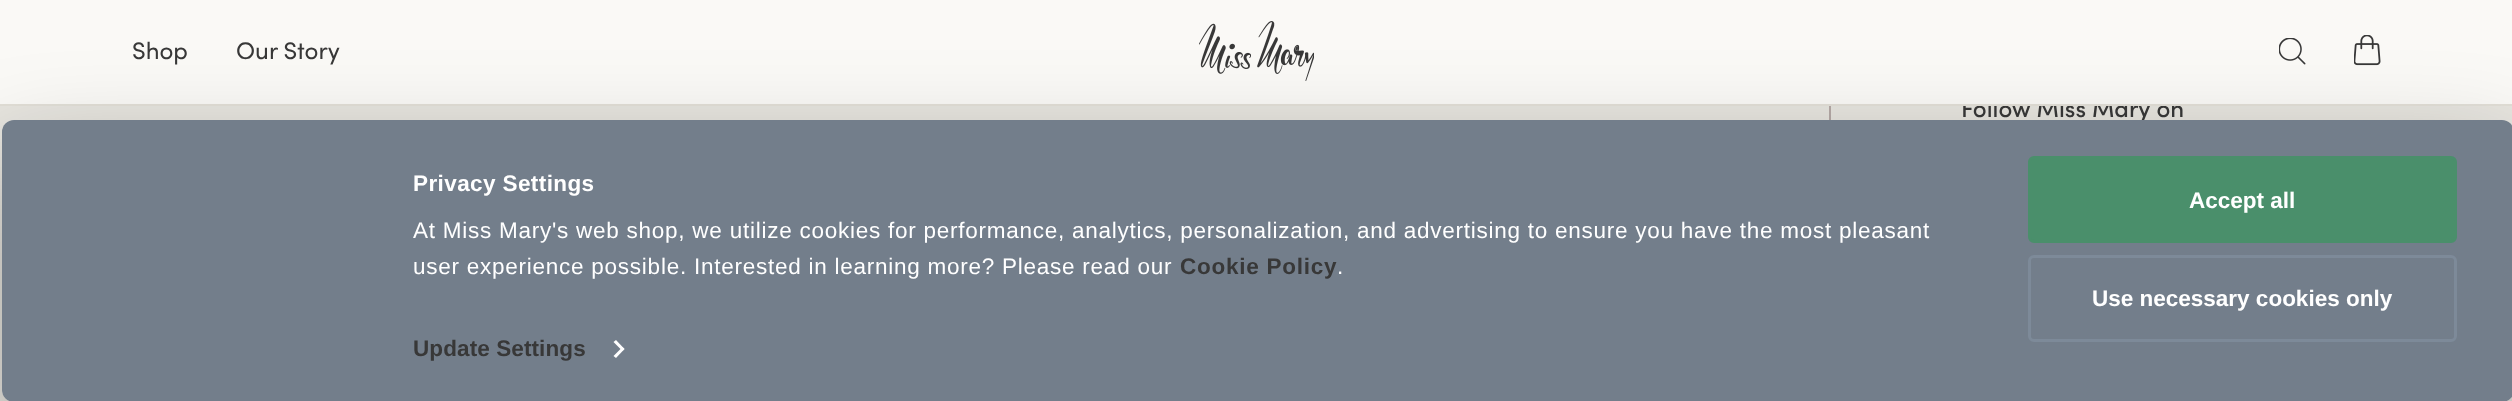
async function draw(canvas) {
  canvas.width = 2512
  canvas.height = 401
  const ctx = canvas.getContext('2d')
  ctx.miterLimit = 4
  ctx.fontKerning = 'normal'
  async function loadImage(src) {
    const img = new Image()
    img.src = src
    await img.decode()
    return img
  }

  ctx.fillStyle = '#e7e5df'
  ctx.fillRect(0, 0, 2512, 401)
  ctx.font = '500 24px Sofia'
  ctx.fillStyle = '#383838'
  ctx.fillText('Follow Miss Mary on', 1961, 117)
  ctx.fillStyle = '#faf9f6'
  ctx.fillRect(0, 0, 2512, 104)
  ctx.fillStyle = '#e2dfd7'
  ctx.fillRect(0, 104, 2512, 2)
  ctx.font = '24px Sofia'
  ctx.fillStyle = '#383838'
  ctx.fillText('Shop', 132, 59)
  ctx.fillText('Our Story', 236, 59)
  ctx.drawImage(await loadImage('image0.png'), 1199, 21, 115, 60)
  ctx.drawImage(await loadImage('image1.png'), 2279, 38, 27, 27)
  ctx.drawImage(await loadImage('image2.png'), 2354, 35, 27, 31)
  ctx.fillStyle = '#b5a9a6'
  ctx.fillRect(1829, 106, 2, 14)
  ctx.save()
  ctx.beginPath()
  ctx.moveTo(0, 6)
  ctx.lineTo(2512, 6)
  ctx.lineTo(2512, 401)
  ctx.lineTo(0, 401)
  ctx.closePath()
  ctx.moveTo(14, 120)
  ctx.lineTo(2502, 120)
  ctx.bezierCurveTo(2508.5, 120, 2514, 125.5, 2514, 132)
  ctx.lineTo(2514, 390)
  ctx.bezierCurveTo(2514, 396.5, 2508.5, 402, 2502, 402)
  ctx.lineTo(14, 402)
  ctx.bezierCurveTo(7.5, 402, 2, 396.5, 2, 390)
  ctx.lineTo(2, 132)
  ctx.bezierCurveTo(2, 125.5, 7.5, 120, 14, 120)
  ctx.closePath()
  ctx.clip('evenodd')
  ctx.fillStyle = '#0000004d'
  ctx.filter = 'blur(52.5px)'
  ctx.beginPath()
  ctx.roundRect(2, 165, 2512, 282, 12)
  ctx.fill()
  ctx.filter = 'none'
  ctx.restore()
  ctx.fillStyle = '#737e8b'
  ctx.beginPath()
  ctx.roundRect(2, 120, 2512, 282, 12)
  ctx.fill()
  ctx.letterSpacing = '0.4px'
  ctx.font = 'bold 22.5px Liberation Sans'
  ctx.fillStyle = '#fff'
  ctx.fillText('Privacy Settings', 413, 191)
  ctx.letterSpacing = '0.75px'
  ctx.font = '22.5px Liberation Sans'
  ctx.fillText('At Miss Mary\'s web shop, we utilize cookies for performance, analytics, personalization, and advertising to ensure you have the most pleasant', 413, 238)
  ctx.fillText('user experience possible. Interested in learning more? Please read our', 413, 274)
  ctx.font = 'bold 22.5px Liberation Sans'
  ctx.fillStyle = '#383838'
  ctx.fillText('Cookie Policy', 1180, 274)
  ctx.font = '22.5px Liberation Sans'
  ctx.fillStyle = '#fff'
  ctx.fillText('.', 1337, 274)
  ctx.letterSpacing = '0.1px'
  ctx.font = 'bold 22.5px Liberation Sans'
  ctx.fillStyle = '#383838'
  ctx.fillText('Update Settings', 413, 356)
  ctx.fillStyle = '#fff'
  ctx.beginPath()
  ctx.moveTo(616, 340)
  ctx.lineTo(624.5, 349)
  ctx.lineTo(622.5, 351)
  ctx.lineTo(613.5, 342)
  ctx.closePath()
  ctx.fill()
  ctx.beginPath()
  ctx.moveTo(622.5, 347)
  ctx.lineTo(624.5, 349)
  ctx.lineTo(616, 358)
  ctx.lineTo(613.5, 356)
  ctx.closePath()
  ctx.fill()
  ctx.fillStyle = '#4a8f6b'
  ctx.beginPath()
  ctx.roundRect(2029.5, 157.5, 426, 84, 4.5)
  ctx.fill()
  ctx.strokeStyle = '#4a8f6b'
  ctx.lineWidth = 3
  ctx.stroke()
  ctx.letterSpacing = '0px'
  ctx.fillStyle = '#fff'
  ctx.fillText('Accept all', 2189, 208)
  ctx.beginPath()
  ctx.roundRect(2029.5, 256.5, 426, 84, 4.5)
  ctx.strokeStyle = '#7d8a99'
  ctx.stroke()
  ctx.fillText('Use necessary cookies only', 2092, 306)
}

draw(document.querySelector('canvas'))
